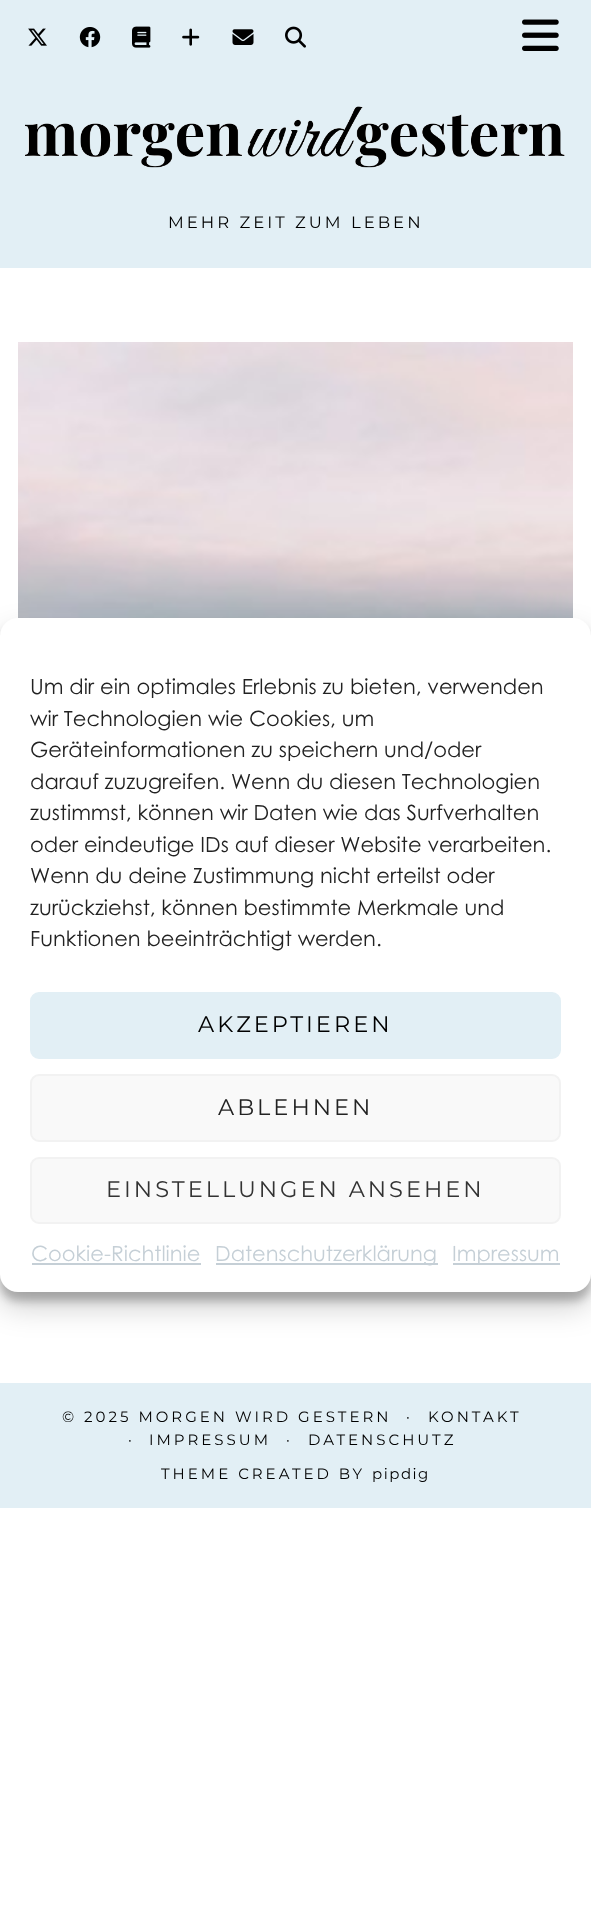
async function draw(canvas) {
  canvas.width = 591
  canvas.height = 1907
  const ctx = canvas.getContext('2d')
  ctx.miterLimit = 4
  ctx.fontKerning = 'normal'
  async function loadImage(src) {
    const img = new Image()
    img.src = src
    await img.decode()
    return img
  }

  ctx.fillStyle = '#fff'
  ctx.fillRect(0, 0, 591, 1907)
  ctx.fillStyle = '#e2eff5'
  ctx.fillRect(0, 0, 591, 268)
  ctx.drawImage(await loadImage('image0.png'), 28, 28, 19, 18)
  ctx.drawImage(await loadImage('image1.png'), 79, 27, 22, 21)
  ctx.drawImage(await loadImage('image2.png'), 132, 26, 19, 22)
  ctx.drawImage(await loadImage('image3.png'), 182, 28, 18, 18)
  ctx.drawImage(await loadImage('image4.png'), 232, 29, 22, 16)
  ctx.drawImage(await loadImage('image5.png'), 285, 26, 21, 22)
  ctx.drawImage(await loadImage('image6.png'), 522, 19, 37, 32)
  ctx.drawImage(await loadImage('image7.png'), 25, 106, 540, 62)
  ctx.letterSpacing = '3px'
  ctx.font = '100 16.5px Montserrat'
  ctx.fillStyle = '#000'
  ctx.fillText('MEHR ZEIT ZUM LEBEN', 168, 228)
  ctx.drawImage(await loadImage('image8.png'), 18, 342, 555, 276)
  ctx.fillStyle = '#0000003b'
  ctx.filter = 'blur(4.5px)'
  ctx.beginPath()
  ctx.roundRect(0, 627, 591, 674, 18)
  ctx.fill()
  ctx.filter = 'none'
  ctx.fillStyle = '#00000030'
  ctx.filter = 'blur(15px)'
  ctx.beginPath()
  ctx.roundRect(0, 633, 591, 674, 18)
  ctx.fill()
  ctx.filter = 'none'
  ctx.fillStyle = '#fff'
  ctx.beginPath()
  ctx.roundRect(0, 618, 591, 674, 18)
  ctx.fill()
  ctx.letterSpacing = '0px'
  ctx.font = '21px Century Gothic'
  ctx.fillStyle = '#222'
  ctx.fillText('Um dir ein optimales Erlebnis zu bieten, verwenden', 30, 694)
  ctx.fillText('wir Technologien wie Cookies, um', 30, 726)
  ctx.fillText('Geräteinformationen zu speichern und/oder', 30, 757)
  ctx.fillText('darauf zuzugreifen. Wenn du diesen Technologien', 30, 789)
  ctx.fillText('zustimmst, können wir Daten wie das Surfverhalten', 30, 820)
  ctx.fillText('oder eindeutige IDs auf dieser Website verarbeiten.', 30, 852)
  ctx.fillText('Wenn du deine Zustimmung nicht erteilst oder', 30, 883)
  ctx.fillText('zurückziehst, können bestimmte Merkmale und', 30, 915)
  ctx.fillText('Funktionen beeinträchtigt werden.', 30, 946)
  ctx.fillStyle = '#e2eff5'
  ctx.beginPath()
  ctx.roundRect(31, 993, 529, 65, 8)
  ctx.fill()
  ctx.strokeStyle = '#e2eff5'
  ctx.lineWidth = 2
  ctx.stroke()
  ctx.letterSpacing = '3px'
  ctx.font = '100 22.5px Montserrat'
  ctx.fillStyle = '#000'
  ctx.fillText('AKZEPTIEREN', 198, 1032)
  ctx.fillStyle = '#f9f9f9'
  ctx.beginPath()
  ctx.roundRect(31, 1075, 529, 66, 8)
  ctx.fill()
  ctx.strokeStyle = '#f2f2f2'
  ctx.stroke()
  ctx.fillStyle = '#222'
  ctx.fillText('ABLEHNEN', 218, 1115)
  ctx.fillStyle = '#f9f9f9'
  ctx.beginPath()
  ctx.roundRect(31, 1158, 529, 65, 8)
  ctx.fill()
  ctx.stroke()
  ctx.fillStyle = '#333'
  ctx.fillText('EINSTELLUNGEN ANSEHEN', 106, 1197)
  ctx.letterSpacing = '0px'
  ctx.font = '21px Century Gothic'
  ctx.fillStyle = '#c5cfd6'
  ctx.fillText('Cookie-Richtlinie', 31, 1261)
  ctx.fillRect(32, 1263, 169, 2)
  ctx.fillRect(216, 1263, 222, 2)
  ctx.fillText('Datenschutzerklärung', 215, 1261)
  ctx.fillRect(453, 1263, 107, 2)
  ctx.fillText('Impressum', 452, 1261)
  ctx.fillStyle = '#e2eff5'
  ctx.fillRect(0, 1383, 591, 125)
  ctx.letterSpacing = '3px'
  ctx.font = '100 15px Montserrat'
  ctx.fillStyle = '#000'
  ctx.fillText('© 2025 MORGEN WIRD GESTERN', 62, 1422)
  ctx.fillText('·', 406, 1422)
  ctx.fillText('KONTAKT', 428, 1422)
  ctx.fillText('·', 128, 1445)
  ctx.fillText('IMPRESSUM', 149, 1445)
  ctx.fillText('·', 286, 1445)
  ctx.fillText('DATENSCHUTZ', 308, 1445)
  ctx.fillText('THEME CREATED BY', 161, 1479)
  ctx.letterSpacing = '1.5px'
  ctx.fillText('pipdig', 372, 1479)
}

draw(document.querySelector('canvas'))
